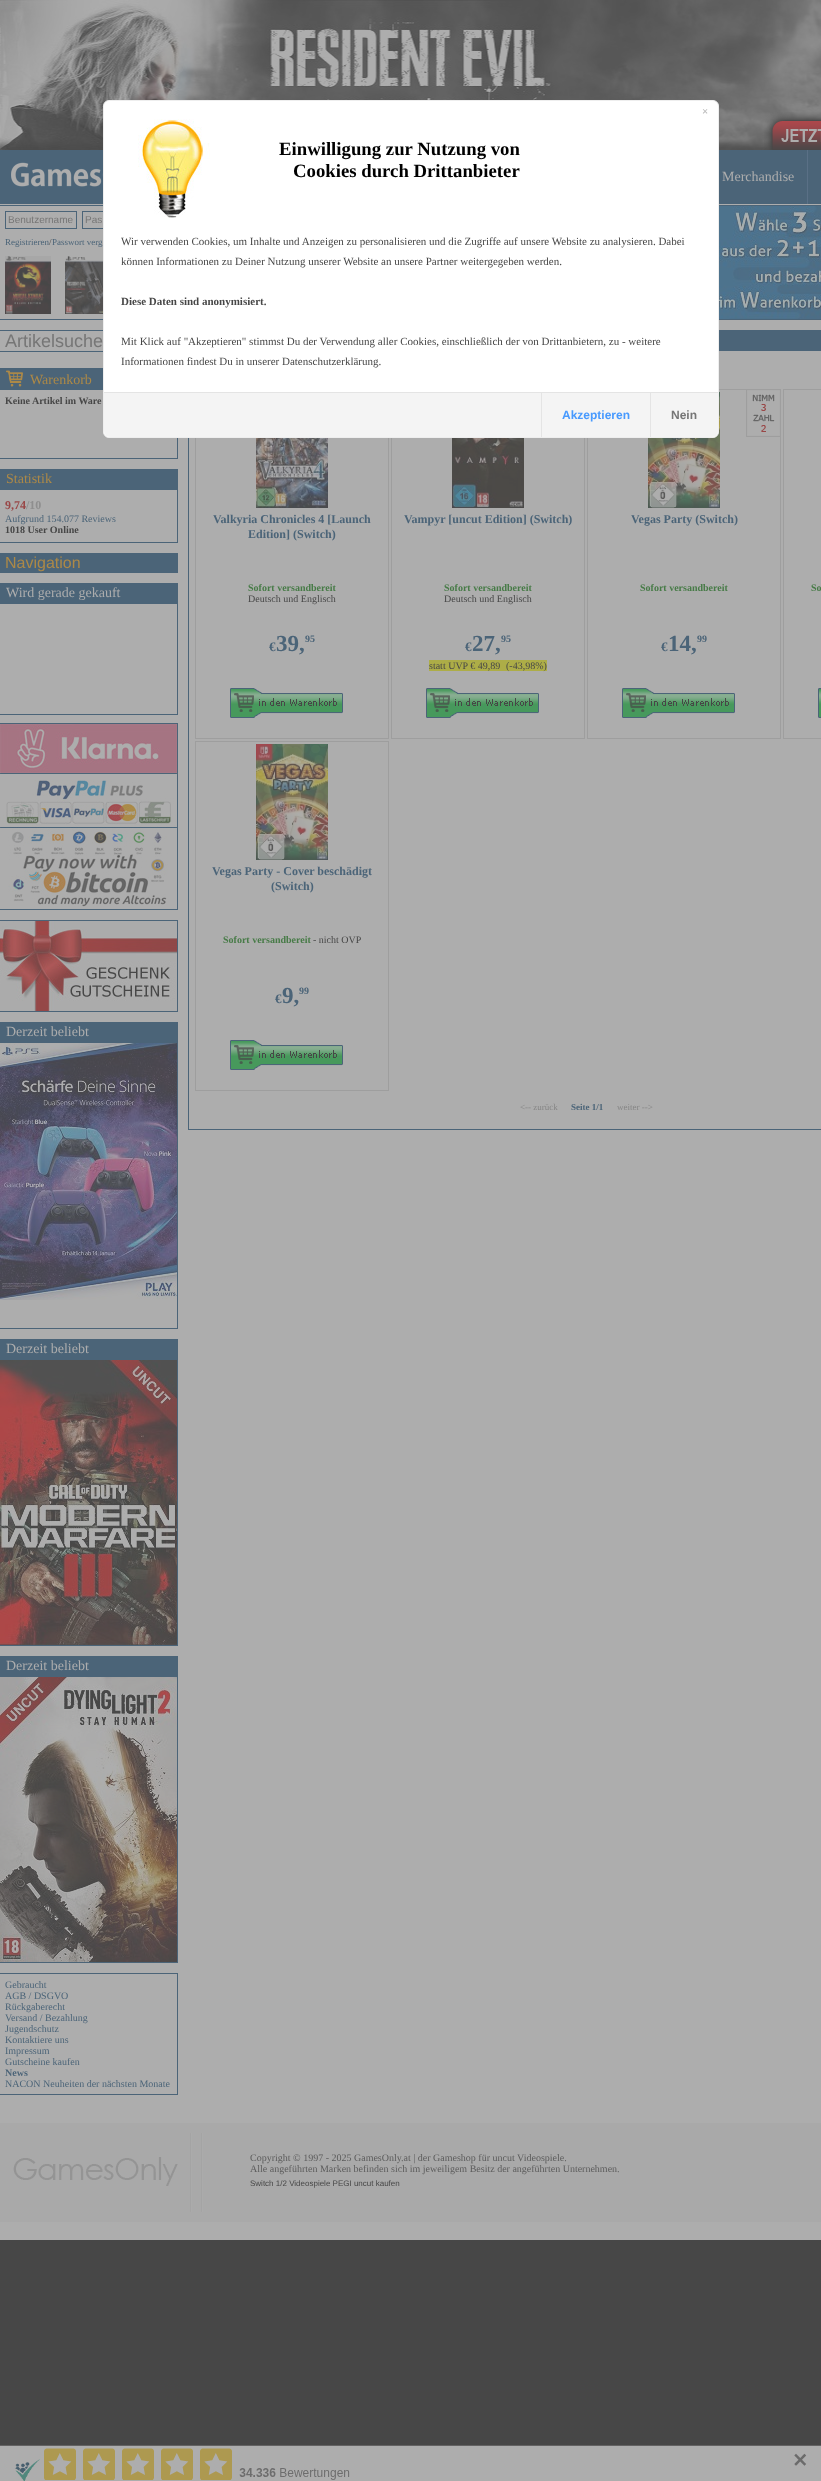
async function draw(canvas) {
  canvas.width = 821
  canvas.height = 2481
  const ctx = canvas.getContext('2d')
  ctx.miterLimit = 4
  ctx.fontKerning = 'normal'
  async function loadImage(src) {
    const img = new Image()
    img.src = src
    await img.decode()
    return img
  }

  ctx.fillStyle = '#474747'
  ctx.fillRect(0, 0, 821, 2481)
  ctx.drawImage(await loadImage('image0.png'), 0, 0, 821, 150)
  ctx.fillStyle = '#adadad'
  ctx.fillRect(0, 204, 821, 2036)
  ctx.strokeStyle = '#4b6478'
  ctx.strokeRect(82.5, 211.5, 47, 17)
  ctx.strokeStyle = '#9e9e9e'
  ctx.strokeRect(195.5, 389.5, 193, 349)
  ctx.strokeRect(391.5, 389.5, 193, 349)
  ctx.strokeRect(587.5, 389.5, 193, 349)
  ctx.drawImage(await loadImage('image16.png'), 648, 392, 72, 116)
  ctx.fillStyle = '#fff'
  ctx.beginPath()
  ctx.roundRect(103.5, 100.5, 615, 337, 5.5)
  ctx.fill()
  ctx.strokeStyle = '#eee'
  ctx.stroke()
  ctx.font = 'bold 11px Liberation Serif'
  ctx.fillStyle = '#bbb'
  ctx.fillText('×', 702, 115)
  ctx.drawImage(await loadImage('image1.png'), 138, 119, 72, 99)
  ctx.font = 'bold 18.75px Liberation Serif'
  ctx.fillStyle = '#000'
  ctx.fillText('Einwilligung zur Nutzung von', 279, 155)
  ctx.fillText('Cookies durch Drittanbieter', 293, 177)
  ctx.font = '11px Liberation Serif'
  ctx.fillStyle = '#474747'
  ctx.fillText('Wir verwenden Cookies, um Inhalte und Anzeigen zu personalisieren und die Zugriffe auf unsere Website zu analysieren. Dabei', 121, 245)
  ctx.fillText('können Informationen zu Deiner Nutzung unserer Website an unsere Partner weitergegeben werden.', 121, 265)
  ctx.font = 'bold 11px Liberation Serif'
  ctx.fillText('Diese Daten sind anonymisiert.', 121, 305)
  ctx.font = '11px Liberation Serif'
  ctx.fillText('Mit Klick auf "Akzeptieren" stimmst Du der Verwendung aller Cookies, einschließlich der von Drittanbietern, zu - weitere', 121, 345)
  ctx.fillText('Informationen findest Du in unserer Datenschutzerklärung.', 121, 365)
  ctx.fillStyle = '#f4f4f4'
  ctx.beginPath()
  ctx.roundRect(104, 392, 614, 45, [0, 0, 6, 6])
  ctx.fill()
  ctx.fillStyle = '#e4e4e4'
  ctx.fillRect(104, 392, 614, 1)
  ctx.fillRect(541, 393, 1, 44)
  ctx.font = 'bold 12px Liberation Sans'
  ctx.fillStyle = '#489afe'
  ctx.fillText('Akzeptieren', 562, 419)
  ctx.fillStyle = '#e4e4e4'
  ctx.fillRect(650, 393, 1, 44)
  ctx.fillStyle = '#767676'
  ctx.fillText('Nein', 671, 419)
  ctx.drawImage(await loadImage('image2.png'), 764, 112, 57, 38)
  ctx.drawImage(await loadImage('image3.png'), 0, 150, 103, 54)
  ctx.fillStyle = '#4b6478'
  ctx.fillRect(719, 150, 88, 54)
  ctx.font = '14px Liberation Serif'
  ctx.fillStyle = '#adadad'
  ctx.fillText('Merchandise', 722, 181)
  ctx.fillStyle = '#4b6478'
  ctx.fillRect(808, 150, 13, 54)
  ctx.fillStyle = '#5a7086'
  ctx.fillRect(807, 150, 1, 54)
  ctx.fillStyle = '#4b6478'
  ctx.fillRect(0, 205, 103, 1)
  ctx.fillRect(0, 319, 103, 1)
  ctx.strokeStyle = '#4b6478'
  ctx.strokeRect(5.5, 211.5, 71, 17)
  ctx.font = '10px Liberation Sans'
  ctx.fillStyle = '#767676'
  ctx.fillText('Benutzername', 8, 223)
  ctx.fillText('Pas', 85, 223)
  ctx.font = '9px Liberation Serif'
  ctx.fillStyle = '#4b6478'
  ctx.fillText('Registrieren', 5, 245)
  ctx.fillStyle = '#474747'
  ctx.fillText('/', 49, 245)
  ctx.fillStyle = '#4b6478'
  ctx.fillText('Passwort verg', 52, 245)
  ctx.drawImage(await loadImage('image4.png'), 5, 256, 46, 58)
  ctx.drawImage(await loadImage('image5.png'), 65, 256, 38, 58)
  ctx.fillRect(0, 330, 103, 1)
  ctx.fillRect(0, 351, 103, 1)
  ctx.font = '18px Liberation Sans'
  ctx.fillStyle = '#767676'
  ctx.fillText('Artikelsuche', 5, 347)
  ctx.fillStyle = '#4b6478'
  ctx.fillRect(0, 368, 103, 22)
  ctx.drawImage(await loadImage('image6.png'), 6, 370, 17, 17)
  ctx.font = '14px Liberation Serif'
  ctx.fillStyle = '#ad8947'
  ctx.fillText('Warenkorb', 30, 384)
  ctx.fillStyle = '#4b6478'
  ctx.fillRect(177, 438, 1, 21)
  ctx.fillRect(0, 458, 178, 1)
  ctx.font = 'bold 10px Liberation Serif'
  ctx.fillStyle = '#474747'
  ctx.fillText('Keine Artikel im Ware', 5, 404)
  ctx.fillStyle = '#4b6478'
  ctx.fillRect(0, 469, 178, 21)
  ctx.font = '14px Liberation Serif'
  ctx.fillStyle = '#ad8947'
  ctx.fillText('Statistik', 6, 483)
  ctx.fillStyle = '#4b6478'
  ctx.fillRect(177, 489, 1, 54)
  ctx.fillRect(0, 542, 178, 1)
  ctx.font = 'bold 12px Liberation Serif'
  ctx.fillStyle = '#994747'
  ctx.fillText('9,74', 5, 509)
  ctx.fillStyle = '#8e8e8e'
  ctx.fillText('/10', 26, 509)
  ctx.font = '10px Liberation Serif'
  ctx.fillStyle = '#4b6478'
  ctx.fillText('Aufgrund 154.077 Reviews', 5, 522)
  ctx.font = 'bold 10px Liberation Serif'
  ctx.fillStyle = '#474747'
  ctx.fillText('1018 User Online', 5, 533)
  ctx.fillStyle = '#4b6478'
  ctx.fillRect(0, 553, 178, 20)
  ctx.font = '16px Liberation Sans'
  ctx.fillStyle = '#ad8947'
  ctx.fillText('Navigation', 5, 568)
  ctx.fillStyle = '#4b6478'
  ctx.fillRect(0, 583, 178, 21)
  ctx.font = '14px Liberation Serif'
  ctx.fillStyle = '#adadad'
  ctx.fillText('Wird gerade gekauft', 6, 597)
  ctx.fillStyle = '#4b6478'
  ctx.fillRect(177, 603, 1, 112)
  ctx.fillRect(0, 714, 178, 1)
  ctx.fillRect(0, 723, 178, 1)
  ctx.fillRect(177, 723, 1, 187)
  ctx.fillRect(0, 909, 178, 1)
  ctx.drawImage(await loadImage('image7.png'), 0, 724, 177, 183)
  ctx.fillRect(0, 920, 178, 1)
  ctx.fillRect(177, 920, 1, 92)
  ctx.fillRect(0, 1011, 178, 1)
  ctx.drawImage(await loadImage('image8.png'), 0, 921, 177, 90)
  ctx.fillRect(0, 1022, 178, 21)
  ctx.fillStyle = '#adadad'
  ctx.fillText('Derzeit beliebt', 6, 1036)
  ctx.fillStyle = '#4b6478'
  ctx.fillRect(177, 1042, 1, 287)
  ctx.fillRect(0, 1328, 178, 1)
  ctx.drawImage(await loadImage('image9.png'), 0, 1043, 177, 257)
  ctx.fillRect(0, 1339, 178, 21)
  ctx.fillStyle = '#adadad'
  ctx.fillText('Derzeit beliebt', 6, 1353)
  ctx.fillStyle = '#4b6478'
  ctx.fillRect(177, 1359, 1, 287)
  ctx.fillRect(0, 1645, 178, 1)
  ctx.drawImage(await loadImage('image10.png'), 0, 1360, 177, 285)
  ctx.fillRect(0, 1656, 178, 21)
  ctx.fillStyle = '#adadad'
  ctx.fillText('Derzeit beliebt', 6, 1670)
  ctx.fillStyle = '#4b6478'
  ctx.fillRect(177, 1676, 1, 287)
  ctx.fillRect(0, 1962, 178, 1)
  ctx.drawImage(await loadImage('image11.png'), 0, 1677, 177, 285)
  ctx.fillRect(0, 1973, 178, 1)
  ctx.fillRect(177, 1973, 1, 122)
  ctx.fillRect(0, 2094, 178, 1)
  ctx.font = '10px Liberation Serif'
  ctx.fillText('Gebraucht', 5, 1988)
  ctx.fillText('AGB / DSGVO', 5, 1999)
  ctx.fillText('Rückgaberecht', 5, 2010)
  ctx.fillText('Versand / Bezahlung', 5, 2021)
  ctx.fillText('Jugendschutz', 5, 2032)
  ctx.fillText('Kontaktiere uns', 5, 2043)
  ctx.fillText('Impressum', 5, 2054)
  ctx.fillText('Gutscheine kaufen', 5, 2065)
  ctx.font = 'bold 10px Liberation Serif'
  ctx.fillText('News', 5, 2076)
  ctx.font = '10px Liberation Serif'
  ctx.fillText('NACON Neuheiten der nächsten Monate', 5, 2087)
  ctx.fillRect(719, 205, 102, 1)
  ctx.fillRect(719, 319, 102, 1)
  ctx.drawImage(await loadImage('image12.png'), 719, 206, 102, 113)
  ctx.fillRect(719, 330, 102, 21)
  ctx.fillRect(188, 1129, 633, 1)
  ctx.fillRect(188, 438, 1, 692)
  ctx.drawImage(await loadImage('image13.png'), 256, 438, 72, 70)
  ctx.font = 'bold 12px Liberation Serif'
  ctx.fillText('Valkyria Chronicles 4 [Launch', 213, 523)
  ctx.fillText('Edition] (Switch)', 248, 538)
  ctx.font = 'bold 10px Liberation Serif'
  ctx.fillStyle = '#477b47'
  ctx.fillText('Sofort versandbereit', 248, 591)
  ctx.font = '10px Liberation Serif'
  ctx.fillStyle = '#474747'
  ctx.fillText('Deutsch und Englisch', 248, 602)
  ctx.font = 'bold 23px Liberation Serif'
  ctx.fillStyle = '#4b6478'
  ctx.fillText('39,', 276, 651)
  ctx.font = 'bold 10px Liberation Serif'
  ctx.fillText('95', 305, 642)
  ctx.font = 'bold 13px Liberation Serif'
  ctx.fillText('€', 269, 651)
  ctx.drawImage(await loadImage('image14.png'), 230, 688, 113, 30)
  ctx.drawImage(await loadImage('image15.png'), 452, 438, 72, 70)
  ctx.font = 'bold 12px Liberation Serif'
  ctx.fillText('Vampyr [uncut Edition] (Switch)', 404, 523)
  ctx.font = 'bold 10px Liberation Serif'
  ctx.fillStyle = '#477b47'
  ctx.fillText('Sofort versandbereit', 444, 591)
  ctx.font = '10px Liberation Serif'
  ctx.fillStyle = '#474747'
  ctx.fillText('Deutsch und Englisch', 444, 602)
  ctx.font = 'bold 23px Liberation Serif'
  ctx.fillStyle = '#4b6478'
  ctx.fillText('27,', 472, 651)
  ctx.font = 'bold 10px Liberation Serif'
  ctx.fillText('95', 501, 642)
  ctx.font = 'bold 13px Liberation Serif'
  ctx.fillText('€', 465, 651)
  ctx.fillStyle = '#adad47'
  ctx.fillRect(429, 660, 118, 11)
  ctx.font = '10px Liberation Serif'
  ctx.fillStyle = '#474747'
  ctx.fillText('statt UVP € 49,89', 429, 669)
  ctx.fillText('(-43,98%)', 506, 669)
  ctx.drawImage(await loadImage('image14.png'), 426, 688, 113, 30)
  ctx.font = 'bold 12px Liberation Serif'
  ctx.fillStyle = '#4b6478'
  ctx.fillText('Vegas Party (Switch)', 631, 523)
  ctx.font = 'bold 10px Liberation Serif'
  ctx.fillStyle = '#477b47'
  ctx.fillText('Sofort versandbereit', 640, 591)
  ctx.drawImage(await loadImage('image17.png'), 746, 390, 34, 47)
  ctx.drawImage(await loadImage('image14.png'), 622, 688, 113, 30)
  ctx.font = 'bold 23px Liberation Serif'
  ctx.fillStyle = '#4b6478'
  ctx.fillText('14,', 668, 651)
  ctx.font = 'bold 10px Liberation Serif'
  ctx.fillText('99', 697, 642)
  ctx.font = 'bold 13px Liberation Serif'
  ctx.fillText('€', 661, 651)
  ctx.strokeStyle = '#9e9e9e'
  ctx.strokeRect(783.5, 389.5, 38, 349)
  ctx.font = 'bold 10px Liberation Serif'
  ctx.fillStyle = '#477b47'
  ctx.fillText('So', 811, 591)
  ctx.drawImage(await loadImage('image18.png'), 818, 688, 3, 30)
  ctx.strokeRect(195.5, 741.5, 193, 349)
  ctx.drawImage(await loadImage('image19.png'), 256, 744, 72, 116)
  ctx.font = 'bold 12px Liberation Serif'
  ctx.fillStyle = '#4b6478'
  ctx.fillText('Vegas Party - Cover beschädigt', 212, 875)
  ctx.fillText('(Switch)', 271, 890)
  ctx.font = 'bold 10px Liberation Serif'
  ctx.fillStyle = '#477b47'
  ctx.fillText('Sofort versandbereit', 223, 943)
  ctx.font = '10px Liberation Serif'
  ctx.fillStyle = '#474747'
  ctx.fillText('- nicht OVP', 313, 943)
  ctx.font = 'bold 23px Liberation Serif'
  ctx.fillStyle = '#4b6478'
  ctx.fillText('9,', 282, 1003)
  ctx.font = 'bold 10px Liberation Serif'
  ctx.fillText('99', 299, 994)
  ctx.font = 'bold 13px Liberation Serif'
  ctx.fillText('€', 275, 1003)
  ctx.drawImage(await loadImage('image14.png'), 230, 1040, 113, 30)
  ctx.font = '9px Liberation Serif'
  ctx.fillStyle = '#868686'
  ctx.fillText('<-- zurück', 520, 1110)
  ctx.font = 'bold 9px Liberation Serif'
  ctx.fillStyle = '#4b6478'
  ctx.fillText('Seite 1/1', 571, 1110)
  ctx.font = '9px Liberation Serif'
  ctx.fillStyle = '#868686'
  ctx.fillText('weiter -->', 617, 1110)
  ctx.fillStyle = '#a9a9a9'
  ctx.fillRect(0, 2123, 821, 99)
  ctx.drawImage(await loadImage('image20.png'), 13, 2157, 165, 29)
  ctx.drawImage(await loadImage('image21.png'), 190, 2133, 13, 79)
  ctx.font = '10px Liberation Serif'
  ctx.fillStyle = '#5c5c5c'
  ctx.fillText('Copyright © 1997 - 2025 GamesOnly.at | der Gameshop für uncut Videospiele.', 250, 2161)
  ctx.fillText('Alle angeführten Marken befinden sich im jeweiligem Besitz der angeführten Unternehmen.', 250, 2172)
  ctx.font = '8px Liberation Sans'
  ctx.fillStyle = '#474747'
  ctx.fillText('Switch 1/2 Videospiele PEGI uncut kaufen', 250, 2186)
  ctx.drawImage(await loadImage('image22.png'), 0, 2445, 821, 36)
  ctx.font = 'bold 19px DejaVu Sans'
  ctx.fillStyle = '#6b6b6b'
  ctx.fillText('✕', 792, 2467)
}

draw(document.querySelector('canvas'))
